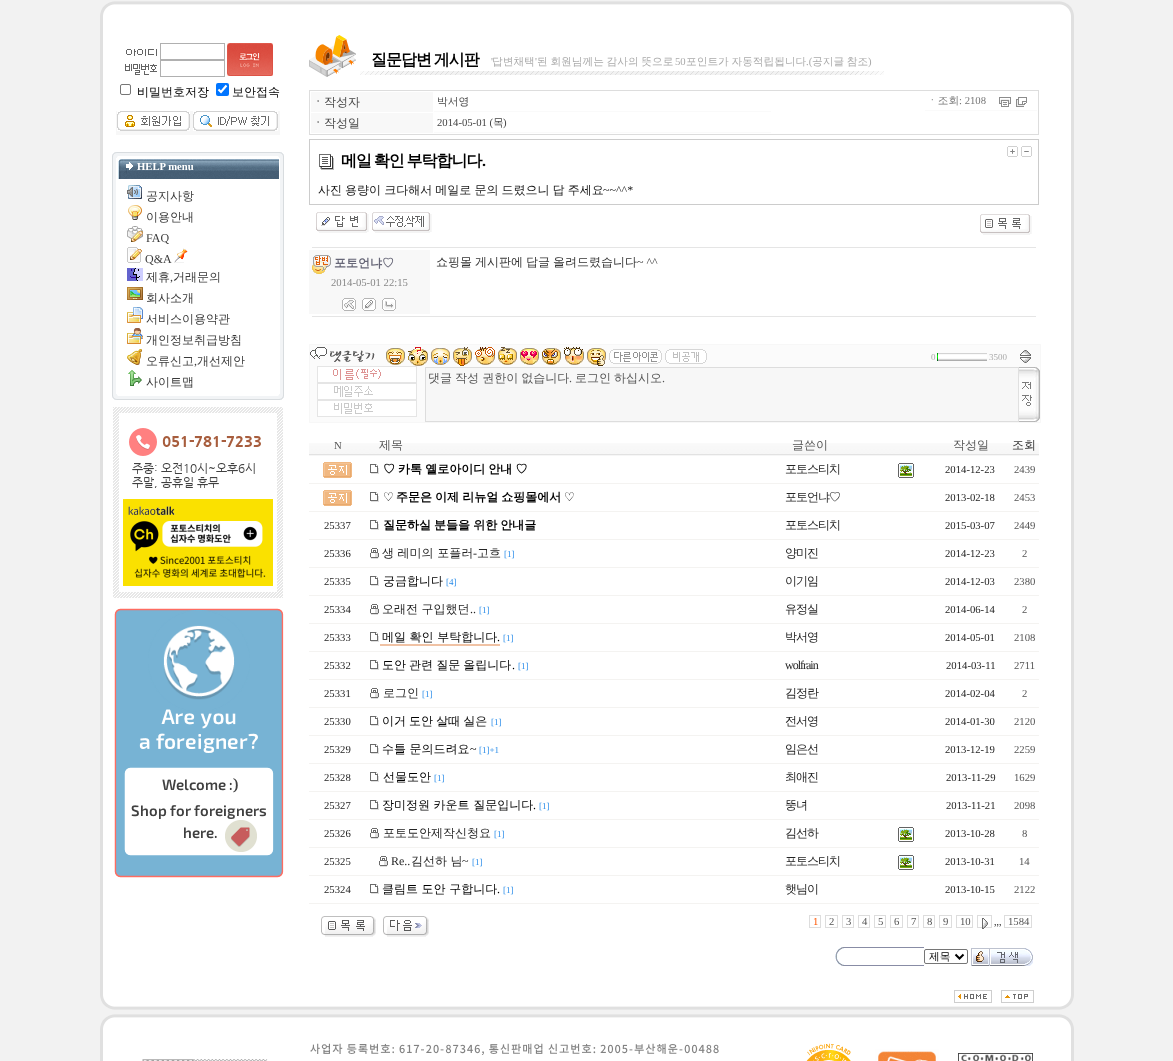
async function draw(canvas) {
  canvas.width = 1173
  canvas.height = 1061
  const ctx = canvas.getContext('2d')
  ctx.miterLimit = 4
  ctx.fontKerning = 'normal'
  async function loadImage(src) {
    const img = new Image()
    img.src = src
    await img.decode()
    return img
  }

  ctx.fillStyle = '#f2f2f2'
  ctx.fillRect(0, 0, 1173, 1061)
  ctx.drawImage(await loadImage('image0.png'), 100, 1, 974, 24)
  ctx.drawImage(await loadImage('image1.png'), 100, 25, 974, 961)
  ctx.drawImage(await loadImage('image2.png'), 126, 49, 31, 7)
  ctx.strokeStyle = '#b0b0b0'
  ctx.strokeRect(160.5, 43.5, 64, 16)
  ctx.drawImage(await loadImage('image3.png'), 125, 64, 32, 11)
  ctx.strokeRect(160.5, 60.5, 64, 16)
  ctx.drawImage(await loadImage('image4.png'), 227, 43, 46, 33)
  ctx.beginPath()
  ctx.roundRect(120.5, 84.5, 10, 10, 1.5)
  ctx.strokeStyle = '#767676'
  ctx.stroke()
  ctx.font = '500 12px WenQuanYi Zen Hei'
  ctx.fillStyle = '#000'
  ctx.fillText('비밀번호저장', 137, 96)
  ctx.fillStyle = '#0075ff'
  ctx.beginPath()
  ctx.roundRect(216, 83, 13, 13, 2)
  ctx.fill()
  ctx.beginPath()
  ctx.moveTo(218.5, 89.5)
  ctx.lineTo(221, 92)
  ctx.lineTo(226.5, 85.5)
  ctx.strokeStyle = '#fff'
  ctx.lineWidth = 2.1
  ctx.stroke()
  ctx.fillStyle = '#000'
  ctx.fillText('보안접속', 232, 96)
  ctx.fillStyle = '#f7f7f7'
  ctx.fillRect(116, 111, 164, 24)
  ctx.drawImage(await loadImage('image5.png'), 117, 111, 73, 20)
  ctx.drawImage(await loadImage('image6.png'), 193, 111, 85, 20)
  ctx.drawImage(await loadImage('image7.png'), 112, 152, 172, 6)
  ctx.drawImage(await loadImage('image8.png'), 112, 158, 172, 236)
  ctx.drawImage(await loadImage('image9.png'), 118, 159, 161, 20)
  ctx.drawImage(await loadImage('image10.png'), 126, 162, 7, 8)
  ctx.font = 'bold 10.7px Liberation Serif'
  ctx.fillStyle = '#fff'
  ctx.fillText('HELP menu', 137, 170)
  ctx.drawImage(await loadImage('image11.png'), 127, 185, 15, 14)
  ctx.font = '500 12px WenQuanYi Zen Hei'
  ctx.fillStyle = '#3a3a3a'
  ctx.fillText('공지사항', 146, 200)
  ctx.drawImage(await loadImage('image12.png'), 128, 205, 14, 15)
  ctx.fillText('이용안내', 146, 221)
  ctx.drawImage(await loadImage('image13.png'), 127, 226, 16, 16)
  ctx.font = '12px Liberation Serif'
  ctx.fillText('FAQ', 146, 242)
  ctx.drawImage(await loadImage('image14.png'), 127, 247, 15, 16)
  ctx.fillText('Q&A', 145, 263)
  ctx.drawImage(await loadImage('image15.png'), 174, 248, 14, 15)
  ctx.drawImage(await loadImage('image16.png'), 127, 268, 16, 13)
  ctx.font = '500 12px WenQuanYi Zen Hei'
  ctx.fillText('제휴', 146, 281)
  ctx.font = '12px Liberation Serif'
  ctx.fillText(',', 170, 281)
  ctx.font = '500 12px WenQuanYi Zen Hei'
  ctx.fillText('거래문의', 173, 281)
  ctx.drawImage(await loadImage('image17.png'), 127, 287, 16, 13)
  ctx.fillText('회사소개', 146, 302)
  ctx.drawImage(await loadImage('image18.png'), 127, 307, 16, 16)
  ctx.fillText('서비스이용약관', 146, 323)
  ctx.drawImage(await loadImage('image19.png'), 127, 328, 16, 16)
  ctx.fillText('개인정보취급방침', 146, 344)
  ctx.drawImage(await loadImage('image20.png'), 127, 349, 15, 16)
  ctx.fillText('오류신고', 146, 365)
  ctx.font = '12px Liberation Serif'
  ctx.fillText(',', 194, 365)
  ctx.font = '500 12px WenQuanYi Zen Hei'
  ctx.fillText('개선제안', 197, 365)
  ctx.drawImage(await loadImage('image21.png'), 128, 370, 14, 16)
  ctx.fillText('사이트맵', 146, 386)
  ctx.drawImage(await loadImage('image22.png'), 112, 394, 172, 6)
  ctx.drawImage(await loadImage('image23.png'), 113, 407, 170, 191)
  ctx.fillStyle = '#fff'
  ctx.fillRect(119, 413, 158, 179)
  ctx.drawImage(await loadImage('image24.png'), 123, 428, 150, 158)
  ctx.drawImage(await loadImage('image25.png'), 114, 608, 170, 270)
  ctx.drawImage(await loadImage('image26.png'), 309, 35, 47, 42)
  ctx.letterSpacing = '-1px'
  ctx.wordSpacing = '-1px'
  ctx.font = 'bold 16px WenQuanYi Zen Hei'
  ctx.fillStyle = '#000'
  ctx.fillText('질문답변 게시판', 371, 65)
  ctx.letterSpacing = '0px'
  ctx.wordSpacing = '0px'
  ctx.font = '10.7px Liberation Serif'
  ctx.fillStyle = '#aaa'
  ctx.fillText('\'', 491, 65)
  ctx.font = '500 10.7px WenQuanYi Zen Hei'
  ctx.fillText('답변채택', 492, 65)
  ctx.font = '10.7px Liberation Serif'
  ctx.fillText('\'', 535, 65)
  ctx.wordSpacing = '-0.5px'
  ctx.font = '500 10.7px WenQuanYi Zen Hei'
  ctx.fillText('된 회원님께는 감사의 뜻으로', 537, 65)
  ctx.wordSpacing = '0px'
  ctx.font = '10.7px Liberation Serif'
  ctx.fillText('50', 675, 65)
  ctx.wordSpacing = '-0.5px'
  ctx.font = '500 10.7px WenQuanYi Zen Hei'
  ctx.fillText('포인트가 자동적립됩니다', 686, 65)
  ctx.wordSpacing = '0px'
  ctx.font = '10.7px Liberation Serif'
  ctx.fillText('.(', 806, 65)
  ctx.wordSpacing = '-0.5px'
  ctx.font = '500 10.7px WenQuanYi Zen Hei'
  ctx.fillText('공지글 참조', 812, 65)
  ctx.wordSpacing = '0px'
  ctx.font = '10.7px Liberation Serif'
  ctx.fillText(')', 868, 65)
  ctx.drawImage(await loadImage('image27.png'), 360, 71, 524, 4)
  ctx.strokeStyle = '#ddd'
  ctx.lineWidth = 1
  ctx.strokeRect(309.5, 90.5, 729, 44)
  ctx.fillStyle = '#f8f8f8'
  ctx.fillRect(311, 92, 122, 20)
  ctx.font = 'bold 12px WenQuanYi Zen Hei'
  ctx.fillStyle = '#454545'
  ctx.fillText('ㆍ', 312, 106)
  ctx.font = '500 12px WenQuanYi Zen Hei'
  ctx.fillText('작성자', 324, 106)
  ctx.fillStyle = '#fafafa'
  ctx.fillRect(434, 111, 337, 1)
  ctx.font = '500 10.7px WenQuanYi Zen Hei'
  ctx.fillStyle = '#454545'
  ctx.fillText('박서영', 437, 105)
  ctx.fillStyle = '#f8f8f8'
  ctx.fillRect(311, 113, 122, 20)
  ctx.font = 'bold 12px WenQuanYi Zen Hei'
  ctx.fillStyle = '#454545'
  ctx.fillText('ㆍ', 312, 127)
  ctx.font = '500 12px WenQuanYi Zen Hei'
  ctx.fillText('작성일', 324, 127)
  ctx.fillStyle = '#fafafa'
  ctx.fillRect(434, 132, 337, 1)
  ctx.font = '10.7px Liberation Serif'
  ctx.fillStyle = '#454545'
  ctx.fillText('2014-05-01 (', 437, 126)
  ctx.font = '500 10.7px WenQuanYi Zen Hei'
  ctx.fillText('목', 493, 126)
  ctx.font = '10.7px Liberation Serif'
  ctx.fillText(')', 503, 126)
  ctx.font = '500 10.7px WenQuanYi Zen Hei'
  ctx.fillStyle = '#777'
  ctx.fillText('ㆍ조회', 927, 104)
  ctx.font = '10.7px Liberation Serif'
  ctx.fillText(': 2108', 959, 104)
  ctx.drawImage(await loadImage('image28.png'), 999, 97, 12, 10)
  ctx.drawImage(await loadImage('image29.png'), 1016, 97, 11, 10)
  ctx.fillStyle = '#fafafa'
  ctx.fillRect(925, 110, 112, 1)
  ctx.strokeStyle = '#ccc'
  ctx.strokeRect(309.5, 139.5, 729, 65)
  ctx.drawImage(await loadImage('image30.png'), 1007, 146, 11, 11)
  ctx.drawImage(await loadImage('image31.png'), 1021, 146, 11, 11)
  ctx.drawImage(await loadImage('image32.png'), 319, 154, 15, 16)
  ctx.letterSpacing = '-1px'
  ctx.wordSpacing = '-1px'
  ctx.font = 'bold 16px WenQuanYi Zen Hei'
  ctx.fillStyle = '#000'
  ctx.fillText('메일 확인 부탁합니다', 341, 166)
  ctx.wordSpacing = '0px'
  ctx.font = 'bold 16px Liberation Serif'
  ctx.fillText('.', 482, 166)
  ctx.letterSpacing = '0px'
  ctx.wordSpacing = '-0.5px'
  ctx.font = '500 12px WenQuanYi Zen Hei'
  ctx.fillStyle = '#151515'
  ctx.fillText('사진 용량이 크다해서 메일로 문의 드렸으니 답 주세요', 318, 194)
  ctx.wordSpacing = '0px'
  ctx.font = '12px Liberation Serif'
  ctx.fillText('~~^^*', 603, 194)
  ctx.drawImage(await loadImage('image33.png'), 316, 212, 53, 21)
  ctx.drawImage(await loadImage('image34.png'), 372, 212, 60, 21)
  ctx.drawImage(await loadImage('image35.png'), 980, 214, 52, 21)
  ctx.fillStyle = '#e5e5e5'
  ctx.fillRect(312, 247, 724, 1)
  ctx.fillStyle = '#f8f8f8'
  ctx.fillRect(309, 250, 121, 64)
  ctx.drawImage(await loadImage('image36.png'), 312, 255, 19, 19)
  ctx.font = 'bold 12px WenQuanYi Zen Hei'
  ctx.fillStyle = '#667'
  ctx.fillText('포토언냐♡', 334, 267)
  ctx.font = '10.7px Liberation Serif'
  ctx.fillStyle = '#888'
  ctx.fillText('2014-05-01 22:15', 331, 286)
  ctx.font = '500 12px WenQuanYi Zen Hei'
  ctx.fillStyle = '#333'
  ctx.fillText('쇼핑몰', 436, 266)
  ctx.fillText('게시판에', 475, 266)
  ctx.fillText('답글', 526, 266)
  ctx.fillText('올려드렸습니다', 553, 266)
  ctx.font = '12px Liberation Serif'
  ctx.fillText('~ ^^', 637, 266)
  ctx.drawImage(await loadImage('image37.png'), 342, 298, 14, 13)
  ctx.drawImage(await loadImage('image38.png'), 362, 298, 14, 13)
  ctx.drawImage(await loadImage('image39.png'), 382, 298, 14, 13)
  ctx.fillStyle = '#e5e5e5'
  ctx.fillRect(312, 316, 724, 1)
  ctx.fillStyle = '#fbfbfb'
  ctx.beginPath()
  ctx.rect(309.5, 344.5, 731, 78)
  ctx.fill()
  ctx.strokeStyle = '#f7f7f7'
  ctx.stroke()
  ctx.drawImage(await loadImage('image40.png'), 310, 347, 65, 15)
  ctx.drawImage(await loadImage('image41.png'), 386, 348, 19, 17)
  ctx.drawImage(await loadImage('image42.png'), 408, 347, 20, 19)
  ctx.drawImage(await loadImage('image43.png'), 431, 348, 19, 17)
  ctx.drawImage(await loadImage('image44.png'), 453, 347, 19, 19)
  ctx.drawImage(await loadImage('image45.png'), 475, 347, 20, 18)
  ctx.drawImage(await loadImage('image46.png'), 498, 347, 19, 18)
  ctx.drawImage(await loadImage('image47.png'), 520, 348, 19, 17)
  ctx.drawImage(await loadImage('image48.png'), 542, 348, 19, 17)
  ctx.drawImage(await loadImage('image49.png'), 564, 347, 20, 18)
  ctx.drawImage(await loadImage('image50.png'), 587, 348, 19, 18)
  ctx.drawImage(await loadImage('image51.png'), 609, 349, 53, 15)
  ctx.drawImage(await loadImage('image52.png'), 665, 349, 42, 15)
  ctx.font = '9px Liberation Serif'
  ctx.fillStyle = '#aaa'
  ctx.fillText('0', 931, 360)
  ctx.drawImage(await loadImage('image53.png'), 938, 353, 49, 8)
  ctx.drawImage(await loadImage('image54.png'), 937, 353, 1, 8)
  ctx.fillText('3500', 989, 360)
  ctx.drawImage(await loadImage('image55.png'), 1020, 350, 11, 13)
  ctx.fillStyle = '#fff'
  ctx.fillRect(318, 367, 98, 15)
  ctx.drawImage(await loadImage('image56.png'), 333, 369, 48, 11)
  ctx.strokeStyle = '#e5e5e5'
  ctx.strokeRect(317.5, 366.5, 99, 16)
  ctx.fillRect(318, 384, 98, 15)
  ctx.drawImage(await loadImage('image57.png'), 334, 386, 39, 11)
  ctx.strokeRect(317.5, 383.5, 99, 16)
  ctx.fillRect(318, 401, 98, 15)
  ctx.drawImage(await loadImage('image58.png'), 334, 403, 39, 11)
  ctx.strokeRect(317.5, 400.5, 99, 16)
  ctx.fillStyle = '#f7f7f7'
  ctx.fillRect(426, 368, 592, 53)
  ctx.fillStyle = '#ddd'
  ctx.fillRect(425, 367, 594, 1)
  ctx.fillStyle = '#e0e0e0'
  ctx.fillRect(1018, 367, 1, 55)
  ctx.fillStyle = '#ddd'
  ctx.fillRect(425, 421, 594, 1)
  ctx.fillRect(425, 367, 1, 55)
  ctx.wordSpacing = '-0.5px'
  ctx.font = '500 12px WenQuanYi Zen Hei'
  ctx.fillStyle = '#555'
  ctx.fillText('댓글 작성 권한이 없습니다', 428, 382)
  ctx.wordSpacing = '0px'
  ctx.font = '12px Liberation Serif'
  ctx.fillText('.', 569, 382)
  ctx.wordSpacing = '-0.5px'
  ctx.font = '500 12px WenQuanYi Zen Hei'
  ctx.fillText('로그인 하십시오', 575, 382)
  ctx.wordSpacing = '0px'
  ctx.font = '12px Liberation Serif'
  ctx.fillText('.', 662, 382)
  ctx.drawImage(await loadImage('image59.png'), 1019, 367, 21, 55)
  ctx.drawImage(await loadImage('image60.png'), 309, 443, 58, 13)
  ctx.font = '10.7px Liberation Serif'
  ctx.fillText('N', 334, 449)
  ctx.drawImage(await loadImage('image61.png'), 367, 443, 416, 13)
  ctx.font = '500 12px WenQuanYi Zen Hei'
  ctx.fillText('제목', 379, 449)
  ctx.drawImage(await loadImage('image62.png'), 783, 443, 114, 13)
  ctx.fillText('글쓴이', 792, 449)
  ctx.drawImage(await loadImage('image63.png'), 897, 443, 36, 13)
  ctx.drawImage(await loadImage('image64.png'), 933, 443, 76, 13)
  ctx.fillText('작성일', 953, 449)
  ctx.drawImage(await loadImage('image65.png'), 1009, 443, 30, 13)
  ctx.fillStyle = '#333'
  ctx.fillText('조회', 1012, 449)
  ctx.drawImage(await loadImage('image66.png'), 323, 462, 29, 16)
  ctx.drawImage(await loadImage('image67.png'), 370, 464, 9, 10)
  ctx.wordSpacing = '-0.5px'
  ctx.font = 'bold 12px WenQuanYi Zen Hei'
  ctx.fillStyle = '#000'
  ctx.fillText('♡ 카톡 옐로아이디 안내 ♡', 383, 473)
  ctx.letterSpacing = '-1px'
  ctx.wordSpacing = '0px'
  ctx.font = '500 12px WenQuanYi Zen Hei'
  ctx.fillStyle = '#242424'
  ctx.fillText('포토스티치', 785, 473)
  ctx.drawImage(await loadImage('image68.png'), 898, 463, 16, 15)
  ctx.letterSpacing = '0px'
  ctx.font = '10.7px Liberation Serif'
  ctx.fillText('2014-12-23', 945, 473)
  ctx.fillStyle = '#555'
  ctx.fillText('2439', 1014, 473)
  ctx.fillStyle = '#f4f3f1'
  ctx.fillRect(309, 483, 730, 1)
  ctx.drawImage(await loadImage('image66.png'), 323, 490, 29, 16)
  ctx.drawImage(await loadImage('image67.png'), 370, 492, 9, 10)
  ctx.font = '12px DejaVu Sans'
  ctx.fillStyle = '#000'
  ctx.fillText('♡', 383, 501)
  ctx.wordSpacing = '-0.5px'
  ctx.font = 'bold 12px WenQuanYi Zen Hei'
  ctx.fillText('주문은 이제 리뉴얼 쇼핑몰에서', 396, 501)
  ctx.wordSpacing = '0px'
  ctx.font = '12px DejaVu Sans'
  ctx.fillText('♡', 564, 501)
  ctx.letterSpacing = '-1px'
  ctx.font = '500 12px WenQuanYi Zen Hei'
  ctx.fillStyle = '#242424'
  ctx.fillText('포토언냐♡', 785, 501)
  ctx.letterSpacing = '0px'
  ctx.font = '10.7px Liberation Serif'
  ctx.fillText('2013-02-18', 945, 501)
  ctx.fillStyle = '#555'
  ctx.fillText('2453', 1014, 501)
  ctx.fillStyle = '#f4f3f1'
  ctx.fillRect(309, 511, 730, 1)
  ctx.fillStyle = '#242424'
  ctx.fillText('25337', 324, 529)
  ctx.drawImage(await loadImage('image67.png'), 370, 520, 9, 10)
  ctx.wordSpacing = '-0.5px'
  ctx.font = 'bold 12px WenQuanYi Zen Hei'
  ctx.fillStyle = '#000'
  ctx.fillText('질문하실 분들을 위한 안내글', 383, 529)
  ctx.letterSpacing = '-1px'
  ctx.wordSpacing = '0px'
  ctx.font = '500 12px WenQuanYi Zen Hei'
  ctx.fillStyle = '#242424'
  ctx.fillText('포토스티치', 785, 529)
  ctx.letterSpacing = '0px'
  ctx.font = '10.7px Liberation Serif'
  ctx.fillText('2015-03-07', 945, 529)
  ctx.fillStyle = '#555'
  ctx.fillText('2449', 1014, 529)
  ctx.fillStyle = '#f4f3f1'
  ctx.fillRect(309, 539, 730, 1)
  ctx.fillStyle = '#242424'
  ctx.fillText('25336', 324, 557)
  ctx.drawImage(await loadImage('image69.png'), 370, 548, 9, 11)
  ctx.font = '500 12px WenQuanYi Zen Hei'
  ctx.fillText('생 레미의 포플러', 382, 557)
  ctx.font = '12px Liberation Serif'
  ctx.fillText('-', 473, 557)
  ctx.font = '500 12px WenQuanYi Zen Hei'
  ctx.fillText('고흐', 477, 557)
  ctx.font = '9px Liberation Serif'
  ctx.fillStyle = '#278be9'
  ctx.fillText('[1]', 504, 557)
  ctx.letterSpacing = '-1px'
  ctx.font = '500 12px WenQuanYi Zen Hei'
  ctx.fillStyle = '#242424'
  ctx.fillText('양미진', 785, 557)
  ctx.letterSpacing = '0px'
  ctx.font = '10.7px Liberation Serif'
  ctx.fillText('2014-12-23', 945, 557)
  ctx.fillStyle = '#555'
  ctx.fillText('2', 1022, 557)
  ctx.fillStyle = '#f4f3f1'
  ctx.fillRect(309, 567, 730, 1)
  ctx.fillStyle = '#242424'
  ctx.fillText('25335', 324, 585)
  ctx.drawImage(await loadImage('image67.png'), 370, 576, 9, 10)
  ctx.font = '500 12px WenQuanYi Zen Hei'
  ctx.fillStyle = '#000'
  ctx.fillText('궁금합니다', 383, 585)
  ctx.font = '9px Liberation Serif'
  ctx.fillStyle = '#278be9'
  ctx.fillText('[4]', 446, 585)
  ctx.letterSpacing = '-1px'
  ctx.font = '500 12px WenQuanYi Zen Hei'
  ctx.fillStyle = '#242424'
  ctx.fillText('이기임', 785, 585)
  ctx.letterSpacing = '0px'
  ctx.font = '10.7px Liberation Serif'
  ctx.fillText('2014-12-03', 945, 585)
  ctx.fillStyle = '#555'
  ctx.fillText('2380', 1014, 585)
  ctx.fillStyle = '#f4f3f1'
  ctx.fillRect(309, 595, 730, 1)
  ctx.fillStyle = '#242424'
  ctx.fillText('25334', 324, 613)
  ctx.drawImage(await loadImage('image69.png'), 370, 604, 9, 11)
  ctx.font = '500 12px WenQuanYi Zen Hei'
  ctx.fillText('오래전 구입했던', 382, 613)
  ctx.font = '12px Liberation Serif'
  ctx.fillText('..', 470, 613)
  ctx.font = '9px Liberation Serif'
  ctx.fillStyle = '#278be9'
  ctx.fillText('[1]', 479, 613)
  ctx.letterSpacing = '-1px'
  ctx.font = '500 12px WenQuanYi Zen Hei'
  ctx.fillStyle = '#242424'
  ctx.fillText('유정실', 785, 613)
  ctx.letterSpacing = '0px'
  ctx.font = '10.7px Liberation Serif'
  ctx.fillText('2014-06-14', 945, 613)
  ctx.fillStyle = '#555'
  ctx.fillText('2', 1022, 613)
  ctx.fillStyle = '#f4f3f1'
  ctx.fillRect(309, 623, 730, 1)
  ctx.fillStyle = '#242424'
  ctx.fillText('25333', 324, 641)
  ctx.drawImage(await loadImage('image67.png'), 370, 632, 9, 10)
  ctx.font = '500 12px WenQuanYi Zen Hei'
  ctx.fillStyle = '#000'
  ctx.fillText('메일 확인 부탁합니다', 382, 641)
  ctx.font = '12px Liberation Serif'
  ctx.fillText('.', 497, 641)
  ctx.fillStyle = '#f0c2a4'
  ctx.fillRect(380, 644, 120, 2)
  ctx.font = '9px Liberation Serif'
  ctx.fillStyle = '#278be9'
  ctx.fillText('[1]', 503, 641)
  ctx.letterSpacing = '-1px'
  ctx.font = '500 12px WenQuanYi Zen Hei'
  ctx.fillStyle = '#242424'
  ctx.fillText('박서영', 785, 641)
  ctx.letterSpacing = '0px'
  ctx.font = '10.7px Liberation Serif'
  ctx.fillText('2014-05-01', 945, 641)
  ctx.fillStyle = '#555'
  ctx.fillText('2108', 1014, 641)
  ctx.fillStyle = '#f4f3f1'
  ctx.fillRect(309, 651, 730, 1)
  ctx.fillStyle = '#242424'
  ctx.fillText('25332', 324, 669)
  ctx.drawImage(await loadImage('image67.png'), 370, 660, 9, 10)
  ctx.wordSpacing = '-0.5px'
  ctx.font = '500 12px WenQuanYi Zen Hei'
  ctx.fillStyle = '#000'
  ctx.fillText('도안 관련 질문 올립니다', 382, 669)
  ctx.wordSpacing = '0px'
  ctx.font = '12px Liberation Serif'
  ctx.fillText('.', 512, 669)
  ctx.font = '9px Liberation Serif'
  ctx.fillStyle = '#278be9'
  ctx.fillText('[1]', 518, 669)
  ctx.letterSpacing = '-1px'
  ctx.font = '12px Liberation Serif'
  ctx.fillStyle = '#242424'
  ctx.fillText('wolfrain', 785, 669)
  ctx.letterSpacing = '0px'
  ctx.font = '10.7px Liberation Serif'
  ctx.fillText('2014-03-11', 946, 669)
  ctx.fillStyle = '#555'
  ctx.fillText('2711', 1014, 669)
  ctx.fillStyle = '#f4f3f1'
  ctx.fillRect(309, 679, 730, 1)
  ctx.fillStyle = '#242424'
  ctx.fillText('25331', 324, 697)
  ctx.drawImage(await loadImage('image69.png'), 370, 688, 9, 11)
  ctx.font = '500 12px WenQuanYi Zen Hei'
  ctx.fillText('로그인', 383, 697)
  ctx.font = '9px Liberation Serif'
  ctx.fillStyle = '#278be9'
  ctx.fillText('[1]', 422, 697)
  ctx.letterSpacing = '-1px'
  ctx.font = '500 12px WenQuanYi Zen Hei'
  ctx.fillStyle = '#242424'
  ctx.fillText('김정란', 785, 697)
  ctx.letterSpacing = '0px'
  ctx.font = '10.7px Liberation Serif'
  ctx.fillText('2014-02-04', 945, 697)
  ctx.fillStyle = '#555'
  ctx.fillText('2', 1022, 697)
  ctx.fillStyle = '#f4f3f1'
  ctx.fillRect(309, 707, 730, 1)
  ctx.fillStyle = '#242424'
  ctx.fillText('25330', 324, 725)
  ctx.drawImage(await loadImage('image67.png'), 370, 716, 9, 10)
  ctx.wordSpacing = '-0.5px'
  ctx.font = '500 12px WenQuanYi Zen Hei'
  ctx.fillStyle = '#000'
  ctx.fillText('이거 도안 살때 실은', 382, 725)
  ctx.wordSpacing = '0px'
  ctx.font = '9px Liberation Serif'
  ctx.fillStyle = '#278be9'
  ctx.fillText('[1]', 491, 725)
  ctx.letterSpacing = '-1px'
  ctx.font = '500 12px WenQuanYi Zen Hei'
  ctx.fillStyle = '#242424'
  ctx.fillText('전서영', 785, 725)
  ctx.letterSpacing = '0px'
  ctx.font = '10.7px Liberation Serif'
  ctx.fillText('2014-01-30', 945, 725)
  ctx.fillStyle = '#555'
  ctx.fillText('2120', 1014, 725)
  ctx.fillStyle = '#f4f3f1'
  ctx.fillRect(309, 735, 730, 1)
  ctx.fillStyle = '#242424'
  ctx.fillText('25329', 324, 753)
  ctx.drawImage(await loadImage('image67.png'), 370, 744, 9, 10)
  ctx.font = '500 12px WenQuanYi Zen Hei'
  ctx.fillStyle = '#000'
  ctx.fillText('수틀 문의드려요', 382, 753)
  ctx.font = '12px Liberation Serif'
  ctx.fillText('~', 470, 753)
  ctx.font = '9px Liberation Serif'
  ctx.fillStyle = '#278be9'
  ctx.fillText('[1]+1', 479, 753)
  ctx.letterSpacing = '-1px'
  ctx.font = '500 12px WenQuanYi Zen Hei'
  ctx.fillStyle = '#242424'
  ctx.fillText('임은선', 785, 753)
  ctx.letterSpacing = '0px'
  ctx.font = '10.7px Liberation Serif'
  ctx.fillText('2013-12-19', 945, 753)
  ctx.fillStyle = '#555'
  ctx.fillText('2259', 1014, 753)
  ctx.fillStyle = '#f4f3f1'
  ctx.fillRect(309, 763, 730, 1)
  ctx.fillStyle = '#242424'
  ctx.fillText('25328', 324, 781)
  ctx.drawImage(await loadImage('image67.png'), 370, 772, 9, 10)
  ctx.font = '500 12px WenQuanYi Zen Hei'
  ctx.fillStyle = '#000'
  ctx.fillText('선물도안', 383, 781)
  ctx.font = '9px Liberation Serif'
  ctx.fillStyle = '#278be9'
  ctx.fillText('[1]', 434, 781)
  ctx.letterSpacing = '-1px'
  ctx.font = '500 12px WenQuanYi Zen Hei'
  ctx.fillStyle = '#242424'
  ctx.fillText('최애진', 785, 781)
  ctx.letterSpacing = '0px'
  ctx.font = '10.7px Liberation Serif'
  ctx.fillText('2013-11-29', 946, 781)
  ctx.fillStyle = '#555'
  ctx.fillText('1629', 1014, 781)
  ctx.fillStyle = '#f4f3f1'
  ctx.fillRect(309, 791, 730, 1)
  ctx.fillStyle = '#242424'
  ctx.fillText('25327', 324, 809)
  ctx.drawImage(await loadImage('image67.png'), 370, 800, 9, 10)
  ctx.font = '500 12px WenQuanYi Zen Hei'
  ctx.fillStyle = '#000'
  ctx.fillText('장미정원 카운트 질문입니다', 382, 809)
  ctx.font = '12px Liberation Serif'
  ctx.fillText('.', 533, 809)
  ctx.font = '9px Liberation Serif'
  ctx.fillStyle = '#278be9'
  ctx.fillText('[1]', 539, 809)
  ctx.letterSpacing = '-1px'
  ctx.font = '500 12px WenQuanYi Zen Hei'
  ctx.fillStyle = '#242424'
  ctx.fillText('뚱녀', 785, 809)
  ctx.letterSpacing = '0px'
  ctx.font = '10.7px Liberation Serif'
  ctx.fillText('2013-11-21', 946, 809)
  ctx.fillStyle = '#555'
  ctx.fillText('2098', 1014, 809)
  ctx.fillStyle = '#f4f3f1'
  ctx.fillRect(309, 819, 730, 1)
  ctx.fillStyle = '#242424'
  ctx.fillText('25326', 324, 837)
  ctx.drawImage(await loadImage('image69.png'), 370, 828, 9, 11)
  ctx.font = '500 12px WenQuanYi Zen Hei'
  ctx.fillText('포토도안제작신청요', 383, 837)
  ctx.font = '9px Liberation Serif'
  ctx.fillStyle = '#278be9'
  ctx.fillText('[1]', 494, 837)
  ctx.letterSpacing = '-1px'
  ctx.font = '500 12px WenQuanYi Zen Hei'
  ctx.fillStyle = '#242424'
  ctx.fillText('김선하', 785, 837)
  ctx.drawImage(await loadImage('image68.png'), 898, 827, 16, 15)
  ctx.letterSpacing = '0px'
  ctx.font = '10.7px Liberation Serif'
  ctx.fillText('2013-10-28', 945, 837)
  ctx.fillStyle = '#555'
  ctx.fillText('8', 1022, 837)
  ctx.fillStyle = '#f4f3f1'
  ctx.fillRect(309, 847, 730, 1)
  ctx.fillStyle = '#242424'
  ctx.fillText('25325', 324, 865)
  ctx.drawImage(await loadImage('image69.png'), 379, 856, 9, 11)
  ctx.font = '12px Liberation Serif'
  ctx.fillText('Re..', 391, 865)
  ctx.font = '500 12px WenQuanYi Zen Hei'
  ctx.fillText('김선하 님', 411, 865)
  ctx.font = '12px Liberation Serif'
  ctx.fillText('~', 462, 865)
  ctx.font = '9px Liberation Serif'
  ctx.fillStyle = '#278be9'
  ctx.fillText('[1]', 472, 865)
  ctx.letterSpacing = '-1px'
  ctx.font = '500 12px WenQuanYi Zen Hei'
  ctx.fillStyle = '#242424'
  ctx.fillText('포토스티치', 785, 865)
  ctx.drawImage(await loadImage('image68.png'), 898, 855, 16, 15)
  ctx.letterSpacing = '0px'
  ctx.font = '10.7px Liberation Serif'
  ctx.fillText('2013-10-31', 945, 865)
  ctx.fillStyle = '#555'
  ctx.fillText('14', 1019, 865)
  ctx.fillStyle = '#f4f3f1'
  ctx.fillRect(309, 875, 730, 1)
  ctx.fillStyle = '#242424'
  ctx.fillText('25324', 324, 893)
  ctx.drawImage(await loadImage('image67.png'), 370, 884, 9, 10)
  ctx.font = '500 12px WenQuanYi Zen Hei'
  ctx.fillStyle = '#000'
  ctx.fillText('클림트 도안 구합니다', 382, 893)
  ctx.font = '12px Liberation Serif'
  ctx.fillText('.', 497, 893)
  ctx.font = '9px Liberation Serif'
  ctx.fillStyle = '#278be9'
  ctx.fillText('[1]', 503, 893)
  ctx.letterSpacing = '-1px'
  ctx.font = '500 12px WenQuanYi Zen Hei'
  ctx.fillStyle = '#242424'
  ctx.fillText('햇님이', 785, 893)
  ctx.letterSpacing = '0px'
  ctx.font = '10.7px Liberation Serif'
  ctx.fillText('2013-10-15', 945, 893)
  ctx.fillStyle = '#555'
  ctx.fillText('2122', 1014, 893)
  ctx.fillStyle = '#f4f3f1'
  ctx.fillRect(309, 903, 730, 1)
  ctx.drawImage(await loadImage('image70.png'), 321, 916, 55, 21)
  ctx.drawImage(await loadImage('image71.png'), 383, 916, 46, 21)
  ctx.strokeStyle = '#ddd'
  ctx.strokeRect(809.5, 915.5, 11, 12)
  ctx.fillStyle = '#f50'
  ctx.fillText('1', 813, 925)
  ctx.strokeRect(825.5, 915.5, 12, 12)
  ctx.fillStyle = '#555'
  ctx.fillText('2', 829, 925)
  ctx.strokeRect(842.5, 915.5, 11, 12)
  ctx.fillText('3', 846, 925)
  ctx.strokeRect(858.5, 915.5, 11, 12)
  ctx.fillText('4', 862, 925)
  ctx.strokeRect(874.5, 915.5, 11, 12)
  ctx.fillText('5', 878, 925)
  ctx.strokeRect(890.5, 915.5, 12, 12)
  ctx.fillText('6', 894, 925)
  ctx.strokeRect(907.5, 915.5, 11, 12)
  ctx.fillText('7', 911, 925)
  ctx.strokeRect(923.5, 915.5, 11, 12)
  ctx.fillText('8', 927, 925)
  ctx.strokeRect(939.5, 915.5, 12, 12)
  ctx.fillText('9', 943, 925)
  ctx.strokeRect(956.5, 915.5, 16, 12)
  ctx.fillText('10', 960, 925)
  ctx.strokeRect(977.5, 915.5, 14, 12)
  ctx.strokeRect(1004.5, 915.5, 27, 12)
  ctx.fillText('1584', 1008, 925)
  ctx.drawImage(await loadImage('image72.png'), 982, 918, 6, 11)
  ctx.font = '10px Liberation Serif'
  ctx.fillStyle = '#242424'
  ctx.fillText(',,,', 994, 925)
  ctx.drawImage(await loadImage('image73.png'), 835, 947, 9, 19)
  ctx.fillStyle = '#888ca5'
  ctx.fillRect(844, 947, 80, 1)
  ctx.fillRect(844, 965, 80, 1)
  ctx.beginPath()
  ctx.roundRect(924.5, 949.5, 43, 14, 1.5)
  ctx.strokeStyle = '#767676'
  ctx.stroke()
  ctx.beginPath()
  ctx.moveTo(955.5, 954.5)
  ctx.lineTo(959.5, 958.5)
  ctx.lineTo(963.5, 954.5)
  ctx.strokeStyle = '#000'
  ctx.lineWidth = 2
  ctx.stroke()
  ctx.font = '500 10.7px WenQuanYi Zen Hei'
  ctx.fillStyle = '#000'
  ctx.fillText('제목', 929, 960)
  ctx.drawImage(await loadImage('image74.png'), 971, 948, 18, 18)
  ctx.drawImage(await loadImage('image75.png'), 989, 948, 44, 18)
  ctx.drawImage(await loadImage('image76.png'), 100, 986, 974, 24)
  ctx.drawImage(await loadImage('image0.png'), 100, 1014, 974, 24)
  ctx.drawImage(await loadImage('image77.png'), 100, 1038, 974, 23)
  ctx.drawImage(await loadImage('image78.png'), 142, 1059, 126, 2)
  ctx.drawImage(await loadImage('image79.png'), 310, 1043, 409, 12)
  ctx.drawImage(await loadImage('image80.png'), 806, 1043, 227, 18)
}

draw(document.querySelector('canvas'))
